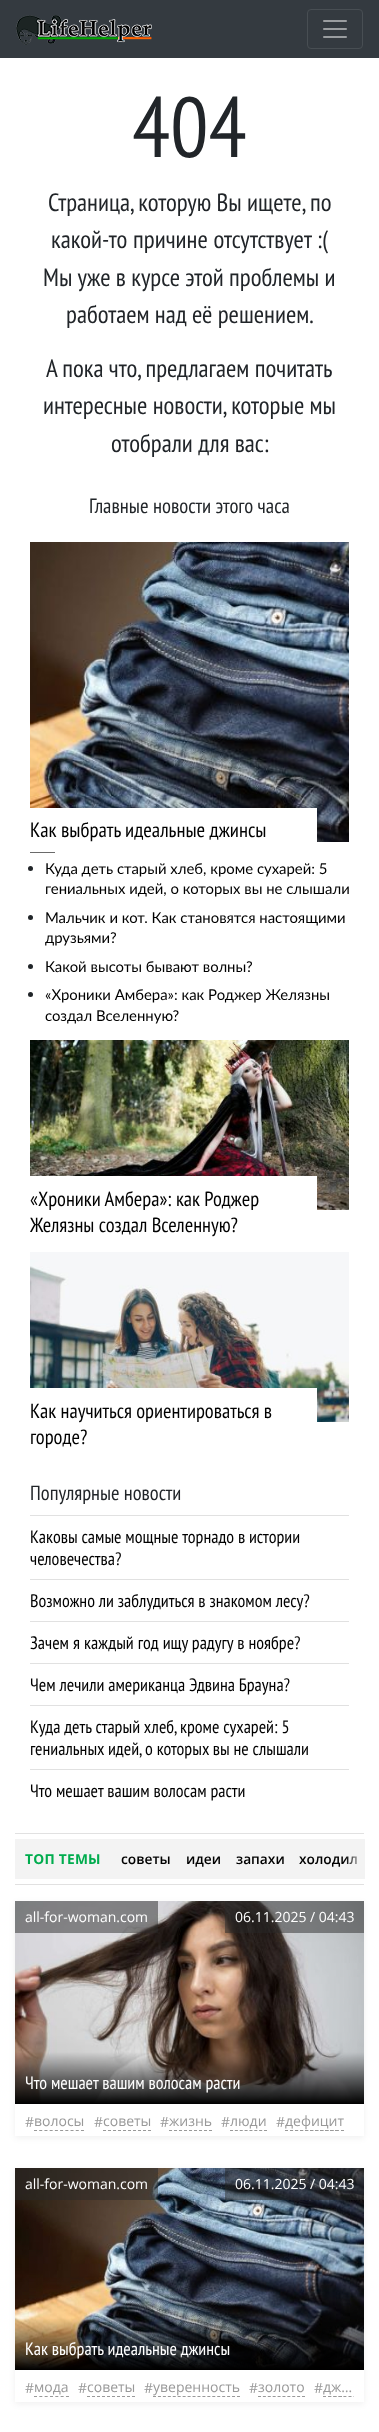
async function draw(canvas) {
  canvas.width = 379
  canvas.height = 2432
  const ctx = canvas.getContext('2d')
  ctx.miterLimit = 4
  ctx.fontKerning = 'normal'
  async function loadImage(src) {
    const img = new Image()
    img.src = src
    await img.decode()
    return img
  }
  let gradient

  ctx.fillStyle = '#fff'
  ctx.fillRect(0, 0, 379, 2432)
  ctx.fillStyle = '#343a40'
  ctx.fillRect(0, 0, 379, 58)
  ctx.drawImage(await loadImage('image0.png'), 16, 15, 136, 30)
  ctx.beginPath()
  ctx.roundRect(307.5, 9.5, 55, 39, 3.5)
  ctx.strokeStyle = '#484e53'
  ctx.stroke()
  ctx.drawImage(await loadImage('image1.png'), 323, 20, 24, 18)
  ctx.font = '85px PT Sans Narrow'
  ctx.fillStyle = '#212529'
  ctx.fillText('404', 132, 157)
  ctx.font = '25px PT Sans Narrow'
  ctx.fillText('Страница, которую Вы ищете, по', 48, 211)
  ctx.wordSpacing = '0.5px'
  ctx.fillText('какой-то причине отсутствует :(', 51, 248)
  ctx.wordSpacing = '0px'
  ctx.fillText('Мы уже в курсе этой проблемы и', 43, 286)
  ctx.fillText('работаем над её решением.', 66, 323)
  ctx.fillText('А пока что, предлагаем почитать', 46, 377)
  ctx.fillText('интересные новости, которые мы', 43, 414)
  ctx.fillText('отобрали для вас:', 111, 452)
  ctx.font = '20.75px PT Sans Narrow'
  ctx.fillText('Главные новости этого часа', 89, 513)
  ctx.drawImage(await loadImage('image2.png'), 30, 542, 319, 300)
  ctx.fillStyle = '#fff'
  ctx.fillRect(30, 808, 287, 34)
  ctx.fillStyle = '#000'
  ctx.fillText('Как выбрать идеальные джинсы', 30, 837)
  ctx.fillStyle = '#6a6a6a'
  ctx.fillRect(30, 852, 25, 1)
  ctx.fillStyle = '#212529'
  ctx.beginPath()
  ctx.arc(30.5, 868.5, 2.5, 0, 2 * Math.PI)
  ctx.fill()
  ctx.font = '14.9px Lato'
  ctx.fillStyle = '#000'
  ctx.fillText('Куда деть старый хлеб, кроме сухарей: 5', 45, 874)
  ctx.fillText('гениальных идей, о которых вы не слышали', 45, 894)
  ctx.fillStyle = '#212529'
  ctx.beginPath()
  ctx.arc(30.5, 917.5, 2.5, 0, 2 * Math.PI)
  ctx.fill()
  ctx.fillStyle = '#000'
  ctx.fillText('Мальчик и кот. Как становятся настоящими', 45, 923)
  ctx.fillText('друзьями?', 45, 943)
  ctx.fillStyle = '#212529'
  ctx.beginPath()
  ctx.arc(30.5, 966.5, 2.5, 0, 2 * Math.PI)
  ctx.fill()
  ctx.fillStyle = '#000'
  ctx.fillText('Какой высоты бывают волны?', 45, 972)
  ctx.fillStyle = '#212529'
  ctx.beginPath()
  ctx.arc(30.5, 994.5, 2.5, 0, 2 * Math.PI)
  ctx.fill()
  ctx.fillStyle = '#000'
  ctx.fillText('«Хроники Амбера»: как Роджер Желязны', 45, 1000)
  ctx.fillText('создал Вселенную?', 45, 1021)
  ctx.drawImage(await loadImage('image3.png'), 30, 1040, 319, 170)
  ctx.fillStyle = '#fff'
  ctx.fillRect(30, 1176, 287, 34)
  ctx.font = '20.5px PT Sans Narrow'
  ctx.fillStyle = '#000'
  ctx.fillText('«Хроники Амбера»: как Роджер', 30, 1206)
  ctx.fillText('Желязны создал Вселенную?', 30, 1232)
  ctx.drawImage(await loadImage('image4.png'), 30, 1252, 319, 170)
  ctx.fillStyle = '#fff'
  ctx.fillRect(30, 1388, 287, 34)
  ctx.fillStyle = '#000'
  ctx.fillText('Как научиться ориентироваться в', 30, 1418)
  ctx.fillText('городе?', 30, 1444)
  ctx.fillStyle = '#212529'
  ctx.fillText('Популярные новости', 30, 1500)
  ctx.fillStyle = '#e1e1e1'
  ctx.fillRect(30, 1515, 319, 1)
  ctx.fillRect(30, 1579, 319, 1)
  ctx.font = '18px PT Sans Narrow'
  ctx.fillStyle = '#000'
  ctx.fillText('Каковы самые мощные торнадо в истории', 30, 1543)
  ctx.fillText('человечества?', 30, 1565)
  ctx.fillStyle = '#e1e1e1'
  ctx.fillRect(30, 1621, 319, 1)
  ctx.fillStyle = '#000'
  ctx.fillText('Возможно ли заблудиться в знакомом лесу?', 30, 1607)
  ctx.fillStyle = '#e1e1e1'
  ctx.fillRect(30, 1663, 319, 1)
  ctx.wordSpacing = '0.25px'
  ctx.fillStyle = '#000'
  ctx.fillText('Зачем я каждый год ищу радугу в ноябре?', 30, 1649)
  ctx.fillStyle = '#e1e1e1'
  ctx.fillRect(30, 1705, 319, 1)
  ctx.wordSpacing = '0px'
  ctx.fillStyle = '#000'
  ctx.fillText('Чем лечили американца Эдвина Брауна?', 30, 1691)
  ctx.fillStyle = '#e1e1e1'
  ctx.fillRect(30, 1769, 319, 1)
  ctx.fillStyle = '#000'
  ctx.fillText('Куда деть старый хлеб, кроме сухарей: 5', 30, 1733)
  ctx.fillText('гениальных идей, о которых вы не слышали', 30, 1755)
  ctx.fillText('Что мешает вашим волосам расти', 30, 1797)
  ctx.fillStyle = '#e1e1e1'
  ctx.fillRect(15, 1833, 349, 1)
  ctx.fillRect(15, 1884, 349, 1)
  ctx.fillStyle = '#f3f3f3'
  ctx.fillRect(15, 1839, 349, 40)
  ctx.letterSpacing = '0.25px'
  ctx.font = 'bold 13.75px Open Sans'
  ctx.fillStyle = '#00ac4e'
  ctx.fillText('ТОП ТЕМЫ', 25, 1864)
  ctx.letterSpacing = '0px'
  ctx.font = '600 13.75px Open Sans'
  ctx.fillStyle = '#000'
  ctx.fillText('холодил', 299, 1864)
  gradient = ctx.createLinearGradient(345, 1859, 365, 1859)
  gradient.addColorStop(0, '#f3f3f300')
  gradient.addColorStop(1, '#f3f3f3')
  ctx.fillStyle = gradient
  ctx.fillRect(345, 1839, 20, 40)
  ctx.fillStyle = '#000'
  ctx.fillText('советы', 121, 1864)
  ctx.fillText('идеи', 186, 1864)
  ctx.fillText('запахи', 236, 1864)
  ctx.save()
  ctx.beginPath()
  ctx.moveTo(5, 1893)
  ctx.lineTo(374, 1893)
  ctx.lineTo(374, 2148)
  ctx.lineTo(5, 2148)
  ctx.closePath()
  ctx.moveTo(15, 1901)
  ctx.lineTo(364, 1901)
  ctx.lineTo(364, 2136)
  ctx.lineTo(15, 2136)
  ctx.closePath()
  ctx.clip('evenodd')
  ctx.fillStyle = '#0000000f'
  ctx.filter = 'blur(3px)'
  ctx.beginPath()
  ctx.rect(15, 1903, 349, 235)
  ctx.fill()
  ctx.filter = 'none'
  ctx.restore()
  ctx.drawImage(await loadImage('image5.png'), 15, 1901, 349, 203)
  ctx.fillStyle = '#28282880'
  ctx.fillRect(15, 1901, 143, 32)
  ctx.font = '14px Open Sans'
  ctx.fillStyle = '#fff'
  ctx.fillText('all-for-woman.com', 25, 1922)
  ctx.fillStyle = '#28282880'
  ctx.fillRect(225, 1901, 139, 32)
  ctx.fillStyle = '#fff'
  ctx.fillText('06.11.2025 / 04:43', 235, 1922)
  ctx.font = '18px PT Sans Narrow'
  ctx.fillText('Что мешает вашим волосам расти', 25, 2089)
  ctx.beginPath()
  ctx.moveTo(34, 2130.5)
  ctx.lineTo(84, 2130.5)
  ctx.strokeStyle = '#999'
  ctx.setLineDash([3, 2.22])
  ctx.stroke()
  ctx.font = '14px Open Sans'
  ctx.fillStyle = '#999'
  ctx.fillText('#', 25, 2127)
  ctx.fillText('волосы', 34, 2126)
  ctx.beginPath()
  ctx.moveTo(103, 2130.5)
  ctx.lineTo(151, 2130.5)
  ctx.setLineDash([3, 2])
  ctx.stroke()
  ctx.fillText('#', 94, 2127)
  ctx.fillText('советы', 103, 2126)
  ctx.beginPath()
  ctx.moveTo(169, 2130.5)
  ctx.lineTo(212, 2130.5)
  ctx.stroke()
  ctx.fillText('#', 160, 2127)
  ctx.fillText('жизнь', 169, 2126)
  ctx.beginPath()
  ctx.moveTo(230, 2130.5)
  ctx.lineTo(267, 2130.5)
  ctx.setLineDash([3, 1.86])
  ctx.stroke()
  ctx.fillText('#', 221, 2127)
  ctx.fillText('люди', 230, 2126)
  ctx.beginPath()
  ctx.moveTo(285, 2130.5)
  ctx.lineTo(344, 2130.5)
  ctx.setLineDash([3, 2.09])
  ctx.stroke()
  ctx.beginPath()
  ctx.moveTo(285, 2130.5)
  ctx.lineTo(338, 2130.5)
  ctx.setLineDash([3, 2])
  ctx.stroke()
  ctx.fillText('#', 276, 2127)
  ctx.fillText('дефицит', 285, 2126)
  ctx.save()
  ctx.beginPath()
  ctx.moveTo(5, 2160)
  ctx.lineTo(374, 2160)
  ctx.lineTo(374, 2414)
  ctx.lineTo(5, 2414)
  ctx.closePath()
  ctx.moveTo(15, 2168)
  ctx.lineTo(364, 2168)
  ctx.lineTo(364, 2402)
  ctx.lineTo(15, 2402)
  ctx.closePath()
  ctx.clip('evenodd')
  ctx.fillStyle = '#0000000f'
  ctx.filter = 'blur(3px)'
  ctx.beginPath()
  ctx.rect(15, 2170, 349, 234)
  ctx.fill()
  ctx.filter = 'none'
  ctx.restore()
  ctx.drawImage(await loadImage('image6.png'), 15, 2168, 349, 202)
  ctx.fillStyle = '#28282880'
  ctx.fillRect(15, 2168, 143, 32)
  ctx.fillStyle = '#fff'
  ctx.fillText('all-for-woman.com', 25, 2189)
  ctx.fillStyle = '#28282880'
  ctx.fillRect(225, 2168, 139, 32)
  ctx.fillStyle = '#fff'
  ctx.fillText('06.11.2025 / 04:43', 235, 2189)
  ctx.font = '18px PT Sans Narrow'
  ctx.fillText('Как выбрать идеальные джинсы', 25, 2355)
  ctx.beginPath()
  ctx.moveTo(34, 2396.5)
  ctx.lineTo(69, 2396.5)
  ctx.setLineDash([3, 2.33])
  ctx.stroke()
  ctx.font = '14px Open Sans'
  ctx.fillStyle = '#999'
  ctx.fillText('#', 25, 2393)
  ctx.fillText('мода', 34, 2392)
  ctx.beginPath()
  ctx.moveTo(87, 2396.5)
  ctx.lineTo(135, 2396.5)
  ctx.setLineDash([3, 2])
  ctx.stroke()
  ctx.fillText('#', 78, 2393)
  ctx.fillText('советы', 87, 2392)
  ctx.beginPath()
  ctx.moveTo(153, 2396.5)
  ctx.lineTo(240, 2396.5)
  ctx.setLineDash([3, 1.94])
  ctx.stroke()
  ctx.fillText('#', 144, 2393)
  ctx.fillText('уверенность', 153, 2392)
  ctx.beginPath()
  ctx.moveTo(258, 2396.5)
  ctx.lineTo(305, 2396.5)
  ctx.setLineDash([3, 1.89])
  ctx.stroke()
  ctx.fillText('золото', 258, 2392)
  ctx.fillText('#', 249, 2393)
  ctx.save()
  ctx.beginPath()
  ctx.rect(25, 2375, 329, 22)
  ctx.clip()
  ctx.beginPath()
  ctx.moveTo(323, 2396.5)
  ctx.lineTo(377, 2396.5)
  ctx.setLineDash([3, 2.1])
  ctx.stroke()
  ctx.restore()
  ctx.beginPath()
  ctx.moveTo(323, 2396.5)
  ctx.lineTo(342, 2396.5)
  ctx.setLineDash([3, 2.33])
  ctx.stroke()
  ctx.fillText('#', 314, 2393)
  ctx.fillText('дж…', 323, 2392)
}

draw(document.querySelector('canvas'))
